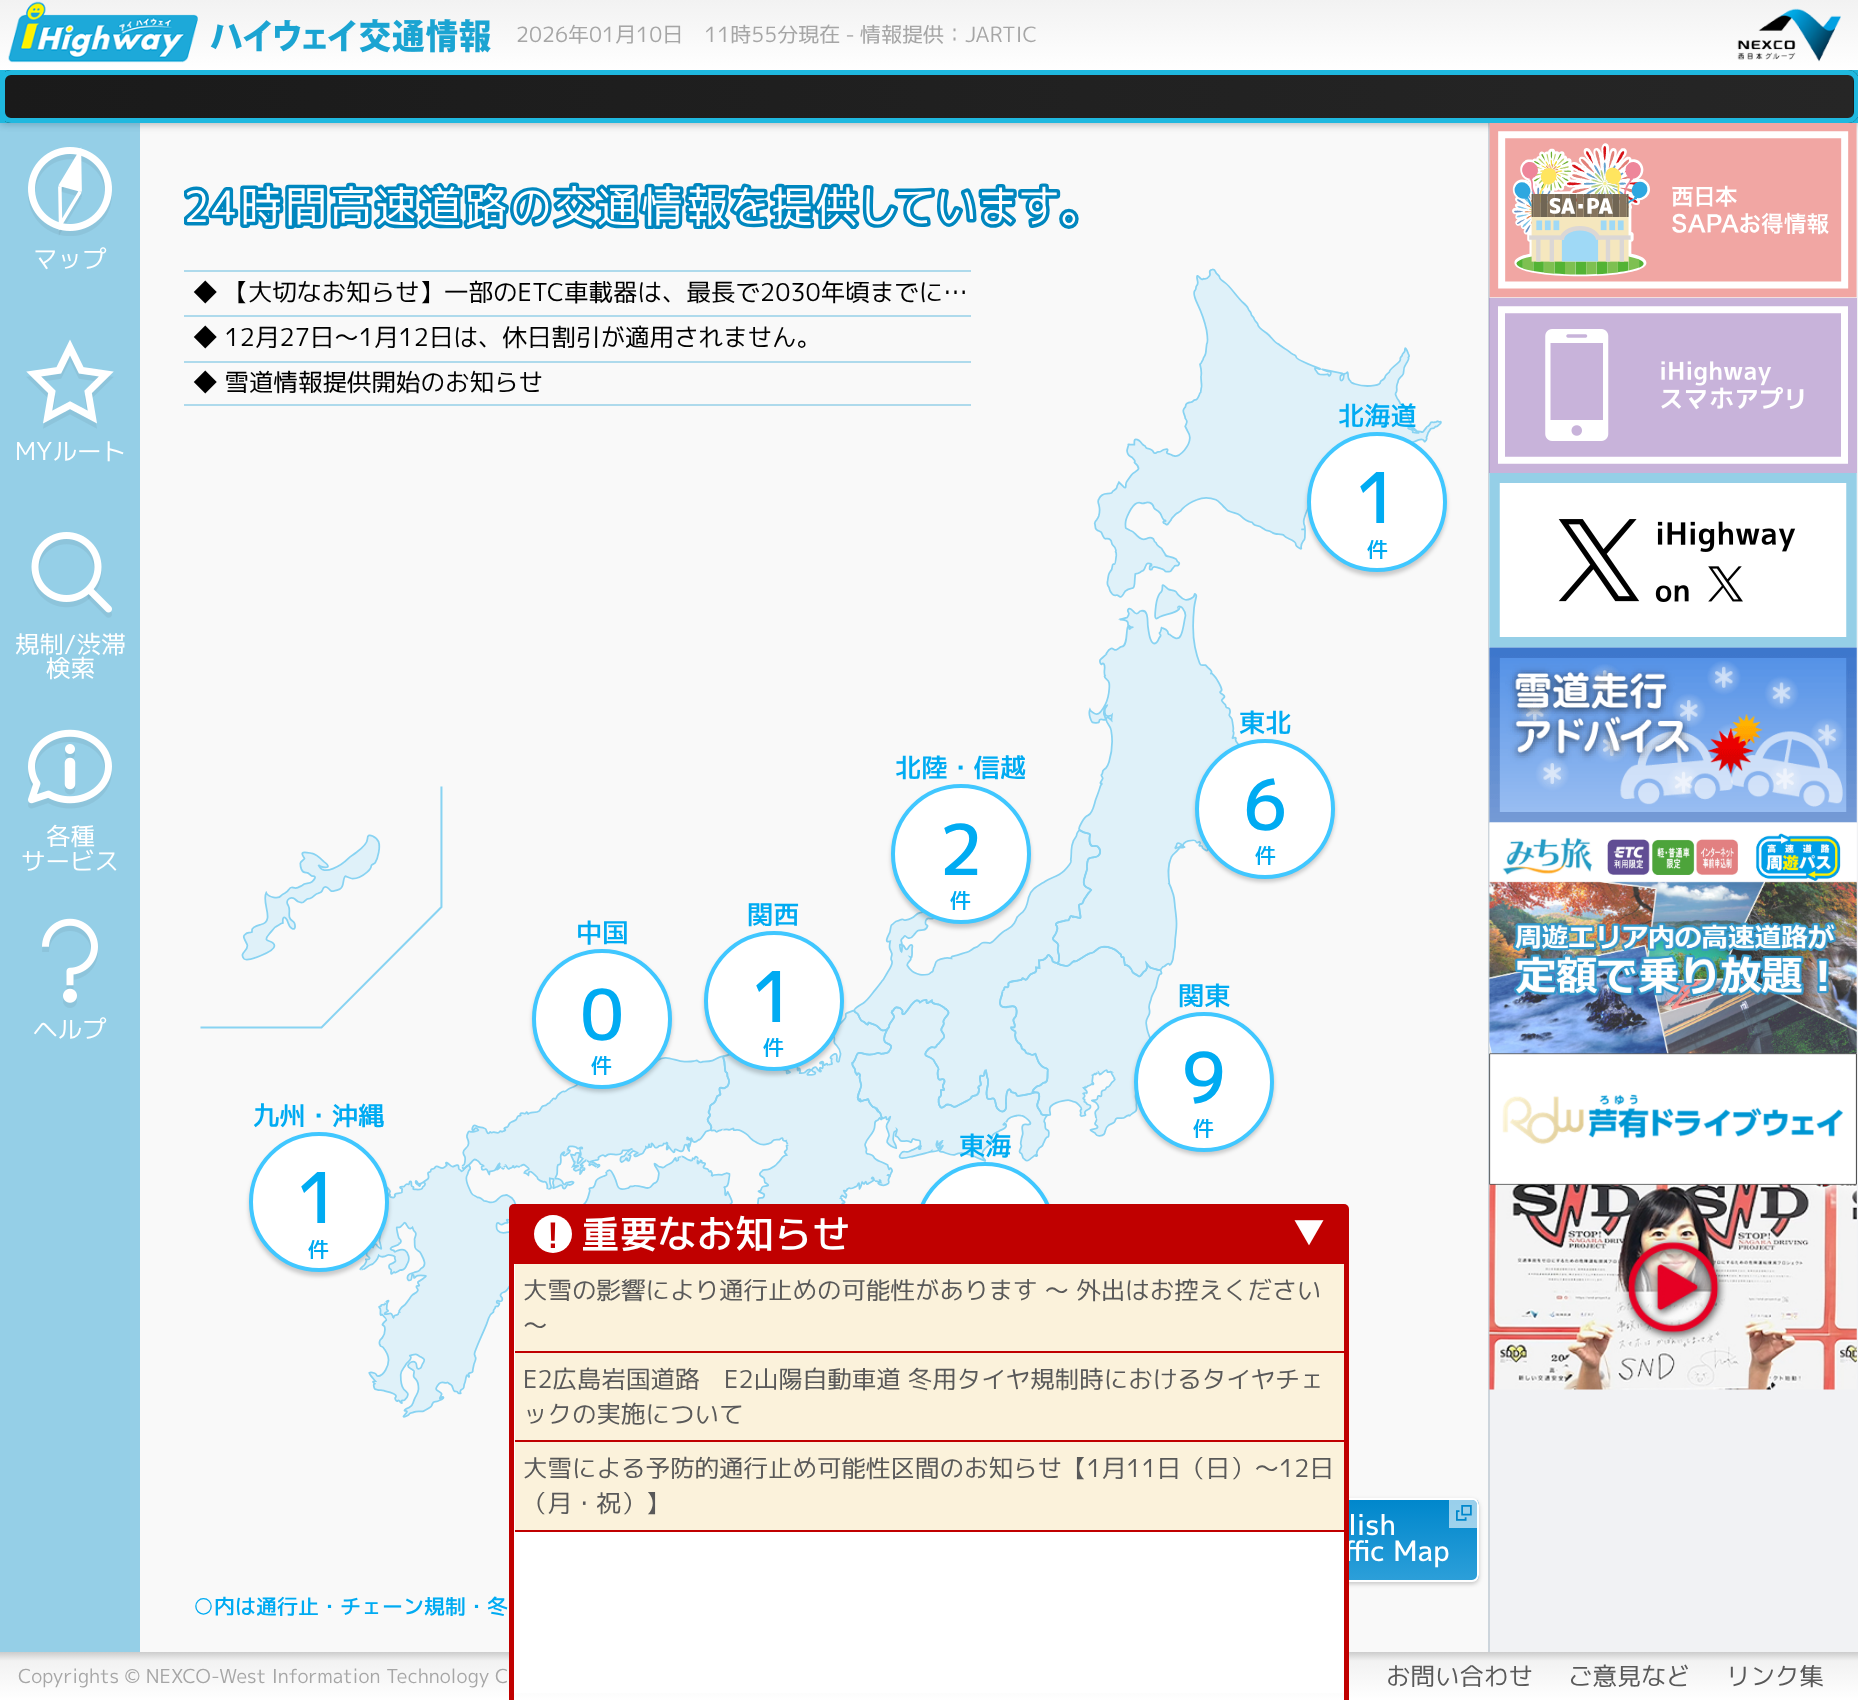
async function draw(canvas) {
  canvas.width = 1858
  canvas.height = 1700
  const ctx = canvas.getContext('2d')
  ctx.miterLimit = 4
  ctx.fontKerning = 'normal'
  async function loadImage(src) {
    const img = new Image()
    img.src = src
    await img.decode()
    return img
  }
  let gradient

  ctx.fillStyle = '#f9f9f9'
  ctx.fillRect(0, 0, 1858, 1700)
  ctx.fillStyle = '#0000004d'
  ctx.filter = 'blur(4.5px)'
  ctx.beginPath()
  ctx.rect(0, 2, 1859, 122)
  ctx.fill()
  ctx.filter = 'none'
  gradient = ctx.createLinearGradient(929, 0, 929, 123)
  gradient.addColorStop(0, '#f2f2f2')
  gradient.addColorStop(0.57, '#fff')
  ctx.fillStyle = gradient
  ctx.fillRect(0, 0, 1858, 70)
  ctx.drawImage(await loadImage('image0.png'), 8, 1, 190, 62)
  ctx.drawImage(await loadImage('image1.png'), 210, 19, 281, 34)
  ctx.wordSpacing = '-1px'
  ctx.font = '21px "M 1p"'
  ctx.fillStyle = '#a6a6a6'
  ctx.fillText('2026年01月10日　11時55分現在 - 情報提供：JARTIC', 516, 42)
  ctx.drawImage(await loadImage('image2.png'), 1737, 8, 104, 54)
  ctx.fillStyle = '#1fb8df'
  ctx.fillRect(0, 70, 1858, 53)
  ctx.save()
  ctx.beginPath()
  ctx.roundRect(0, 70, 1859, 53, 11)
  ctx.clip()
  gradient = ctx.createLinearGradient(5.2, 96, 1853, 96)
  gradient.addColorStop(0, '#1a1a1a')
  gradient.addColorStop(1, '#262626')
  ctx.fillStyle = gradient
  ctx.fillRect(5, 70, 1848, 53)
  gradient = ctx.createLinearGradient(1853, 96, 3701, 96)
  gradient.addColorStop(0, '#1a1a1a')
  gradient.addColorStop(1, '#262626')
  ctx.fillStyle = gradient
  ctx.fillRect(1853, 70, 5, 53)
  ctx.restore()
  ctx.beginPath()
  ctx.roundRect(2.5, 72.5, 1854, 48, 8.5)
  ctx.strokeStyle = '#1fb8df'
  ctx.lineWidth = 5
  ctx.stroke()
  ctx.fillStyle = '#0090cc66'
  ctx.fillRect(0, 123, 140, 1529)
  ctx.drawImage(await loadImage('image3.png'), 28, 147, 84, 89)
  ctx.wordSpacing = '0px'
  ctx.font = '24.5px "M 1p"'
  ctx.fillStyle = '#fff'
  ctx.fillText('マップ', 33, 268)
  ctx.drawImage(await loadImage('image4.png'), 26, 339, 88, 90)
  ctx.fillText('MYルート', 15, 460)
  ctx.drawImage(await loadImage('image5.png'), 31, 532, 81, 86)
  ctx.fillText('規制/渋滞', 15, 653)
  ctx.fillText('検索', 46, 677)
  ctx.drawImage(await loadImage('image6.png'), 28, 729, 84, 80)
  ctx.fillText('各種', 46, 845)
  ctx.fillText('サービス', 21, 870)
  ctx.drawImage(await loadImage('image7.png'), 42, 918, 56, 90)
  ctx.fillText('ヘルプ', 33, 1038)
  ctx.drawImage(await loadImage('image8.png'), 200, 268, 1242, 1150)
  ctx.drawImage(await loadImage('image9.png'), 184, 182, 895, 47)
  ctx.fillStyle = '#aedaec'
  ctx.fillRect(184, 270, 787, 2)
  ctx.fillRect(184, 315, 787, 2)
  ctx.wordSpacing = '-1px'
  ctx.fillStyle = '#000'
  ctx.fillText('◆ 【大切なお知らせ】一部のETC車載器は、最長で2030年頃までに…', 193, 301)
  ctx.fillStyle = '#aedaec'
  ctx.fillRect(184, 361, 787, 2)
  ctx.wordSpacing = '0px'
  ctx.fillStyle = '#000'
  ctx.fillText('◆ 12月27日〜1月12日は、休日割引が適用されません。', 193, 346)
  ctx.fillStyle = '#aedaec'
  ctx.fillRect(184, 404, 787, 2)
  ctx.fillStyle = '#000'
  ctx.fillText('◆ 雪道情報提供開始のお知らせ', 193, 391)
  ctx.fillStyle = '#00000033'
  ctx.filter = 'blur(2px)'
  ctx.beginPath()
  ctx.roundRect(1307, 436, 140, 140, 70)
  ctx.fill()
  ctx.filter = 'none'
  ctx.fillStyle = '#fff'
  ctx.beginPath()
  ctx.arc(1377, 502, 68, 0, 2 * Math.PI)
  ctx.fill()
  ctx.strokeStyle = '#40c7ff'
  ctx.lineWidth = 4
  ctx.stroke()
  ctx.font = '500 26.25px "M 1p"'
  ctx.fillStyle = '#00abf2'
  ctx.fillText('北海道', 1338, 425)
  ctx.font = '500 70px "M 1p"'
  ctx.fillText('1', 1355, 523)
  ctx.font = '500 21px "M 1p"'
  ctx.fillText('件', 1367, 557)
  ctx.fillStyle = '#00000033'
  ctx.filter = 'blur(2px)'
  ctx.beginPath()
  ctx.roundRect(891, 788, 140, 140, 70)
  ctx.fill()
  ctx.filter = 'none'
  ctx.fillStyle = '#fff'
  ctx.beginPath()
  ctx.arc(961, 854, 68, 0, 2 * Math.PI)
  ctx.fill()
  ctx.stroke()
  ctx.font = '500 26.25px "M 1p"'
  ctx.fillStyle = '#00abf2'
  ctx.fillText('北陸・信越', 895, 777)
  ctx.font = '500 70px "M 1p"'
  ctx.fillText('2', 939, 875)
  ctx.font = '500 21px "M 1p"'
  ctx.fillText('件', 950, 908)
  ctx.fillStyle = '#00000033'
  ctx.filter = 'blur(2px)'
  ctx.beginPath()
  ctx.roundRect(1195, 742, 140, 140, 70)
  ctx.fill()
  ctx.filter = 'none'
  ctx.fillStyle = '#fff'
  ctx.beginPath()
  ctx.arc(1265, 809, 68, 0, 2 * Math.PI)
  ctx.fill()
  ctx.stroke()
  ctx.font = '500 26.25px "M 1p"'
  ctx.fillStyle = '#00abf2'
  ctx.fillText('東北', 1239, 732)
  ctx.font = '500 70px "M 1p"'
  ctx.fillText('6', 1243, 830)
  ctx.font = '500 21px "M 1p"'
  ctx.fillText('件', 1255, 863)
  ctx.fillStyle = '#00000033'
  ctx.filter = 'blur(2px)'
  ctx.beginPath()
  ctx.roundRect(532, 952, 140, 140, 70)
  ctx.fill()
  ctx.filter = 'none'
  ctx.fillStyle = '#fff'
  ctx.beginPath()
  ctx.arc(602, 1019, 68, 0, 2 * Math.PI)
  ctx.fill()
  ctx.stroke()
  ctx.font = '500 26.25px "M 1p"'
  ctx.fillStyle = '#00abf2'
  ctx.fillText('中国', 576, 942)
  ctx.font = '500 70px "M 1p"'
  ctx.fillText('0', 580, 1040)
  ctx.font = '500 21px "M 1p"'
  ctx.fillText('件', 591, 1073)
  ctx.fillStyle = '#00000033'
  ctx.filter = 'blur(2px)'
  ctx.beginPath()
  ctx.roundRect(704, 935, 140, 140, 70)
  ctx.fill()
  ctx.filter = 'none'
  ctx.fillStyle = '#fff'
  ctx.beginPath()
  ctx.arc(774, 1001, 68, 0, 2 * Math.PI)
  ctx.fill()
  ctx.stroke()
  ctx.font = '500 26.25px "M 1p"'
  ctx.fillStyle = '#00abf2'
  ctx.fillText('関西', 747, 924)
  ctx.font = '500 70px "M 1p"'
  ctx.fillText('1', 751, 1022)
  ctx.font = '500 21px "M 1p"'
  ctx.fillText('件', 763, 1055)
  ctx.fillStyle = '#00000033'
  ctx.filter = 'blur(2px)'
  ctx.beginPath()
  ctx.roundRect(1134, 1015, 140, 140, 70)
  ctx.fill()
  ctx.filter = 'none'
  ctx.fillStyle = '#fff'
  ctx.beginPath()
  ctx.arc(1204, 1082, 68, 0, 2 * Math.PI)
  ctx.fill()
  ctx.stroke()
  ctx.font = '500 26.25px "M 1p"'
  ctx.fillStyle = '#00abf2'
  ctx.fillText('関東', 1178, 1005)
  ctx.font = '500 70px "M 1p"'
  ctx.fillText('9', 1182, 1103)
  ctx.font = '500 21px "M 1p"'
  ctx.fillText('件', 1193, 1136)
  ctx.fillStyle = '#00000033'
  ctx.filter = 'blur(2px)'
  ctx.beginPath()
  ctx.roundRect(249, 1136, 140, 140, 70)
  ctx.fill()
  ctx.filter = 'none'
  ctx.fillStyle = '#fff'
  ctx.beginPath()
  ctx.arc(319, 1202, 68, 0, 2 * Math.PI)
  ctx.fill()
  ctx.stroke()
  ctx.font = '500 26.25px "M 1p"'
  ctx.fillStyle = '#00abf2'
  ctx.fillText('九州・沖縄', 253, 1125)
  ctx.font = '500 70px "M 1p"'
  ctx.fillText('1', 296, 1223)
  ctx.font = '500 21px "M 1p"'
  ctx.fillText('件', 308, 1257)
  ctx.fillStyle = '#00000033'
  ctx.filter = 'blur(2px)'
  ctx.beginPath()
  ctx.roundRect(915, 1166, 140, 140, 70)
  ctx.fill()
  ctx.filter = 'none'
  ctx.fillStyle = '#fff'
  ctx.beginPath()
  ctx.arc(985, 1232, 68, 0, 2 * Math.PI)
  ctx.fill()
  ctx.stroke()
  ctx.font = '500 26.25px "M 1p"'
  ctx.fillStyle = '#00abf2'
  ctx.fillText('東海', 959, 1155)
  ctx.fillStyle = '#00000033'
  ctx.filter = 'blur(2px)'
  ctx.beginPath()
  ctx.roundRect(1199, 1500, 280, 84, 7)
  ctx.fill()
  ctx.filter = 'none'
  ctx.save()
  ctx.beginPath()
  ctx.roundRect(1199, 1498, 280, 84, 7)
  ctx.clip()
  gradient = ctx.createLinearGradient(1339, 1580, 1339, 1500)
  gradient.addColorStop(0, '#2c9fd9')
  gradient.addColorStop(1, '#0087cc')
  ctx.fillStyle = gradient
  ctx.fillRect(1349, 1500, 130, 80)
  ctx.restore()
  ctx.beginPath()
  ctx.roundRect(1200, 1499, 278, 82, 6)
  ctx.strokeStyle = '#fff'
  ctx.lineWidth = 2
  ctx.stroke()
  ctx.font = '500 28px "M 1p"'
  ctx.fillStyle = '#fff'
  ctx.fillText('lish', 1348, 1535)
  ctx.fillText('ffic Map', 1343, 1561)
  ctx.fillStyle = '#ffffff99'
  ctx.beginPath()
  ctx.roundRect(1449, 1500, 28, 28, [0, 5, 0, 0])
  ctx.fill()
  ctx.drawImage(await loadImage('image10.png'), 1456, 1505, 16, 16)
  ctx.font = '500 21px "M 1p"'
  ctx.fillStyle = '#00abf2'
  ctx.fillText('○内は通行止・チェーン規制・冬', 193, 1614)
  ctx.fillStyle = '#002c5908'
  ctx.fillRect(1488, 123, 370, 1529)
  ctx.fillStyle = '#002c5926'
  ctx.fillRect(1488, 123, 2, 1529)
  ctx.drawImage(await loadImage('image11.png'), 1489, 123, 368, 175)
  ctx.drawImage(await loadImage('image12.png'), 1489, 298, 368, 175)
  ctx.drawImage(await loadImage('image13.png'), 1489, 473, 368, 175)
  ctx.drawImage(await loadImage('image14.png'), 1489, 647, 368, 176)
  ctx.drawImage(await loadImage('image15.png'), 1489, 822, 368, 232)
  ctx.drawImage(await loadImage('image16.png'), 1489, 1053, 368, 132)
  ctx.drawImage(await loadImage('image17.png'), 1489, 1184, 368, 206)
  ctx.fillStyle = '#c00000'
  ctx.beginPath()
  ctx.roundRect(509, 1204, 840, 60, [5, 5, 0, 0])
  ctx.fill()
  ctx.fillStyle = '#fff'
  ctx.beginPath()
  ctx.arc(553, 1234, 19, 0, 2 * Math.PI)
  ctx.fill()
  ctx.font = '500 35px "M 1p"'
  ctx.fillStyle = '#c00000'
  ctx.fillText('!', 546, 1248)
  ctx.font = '500 38.5px "M 1p"'
  ctx.fillStyle = '#fff'
  ctx.fillText('重要なお知らせ', 581, 1248)
  ctx.font = '500 32px "M 1p"'
  ctx.fillText('▼', 1293, 1244)
  gradient = ctx.createLinearGradient(929, 1652, 929, 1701)
  gradient.addColorStop(0, '#ccc')
  gradient.addColorStop(0.18, '#f2f2f2')
  gradient.addColorStop(1, '#fff')
  ctx.fillStyle = gradient
  ctx.fillRect(0, 1652, 1858, 48)
  ctx.fillStyle = '#fff'
  ctx.fillRect(514, 1264, 830, 429)
  ctx.fillStyle = '#c00000'
  ctx.fillRect(1344, 1264, 5, 436)
  ctx.fillRect(509, 1264, 5, 436)
  ctx.fillStyle = '#fbf2db'
  ctx.fillRect(515, 1264, 829, 87)
  ctx.fillStyle = '#c00000'
  ctx.fillRect(515, 1351, 829, 2)
  ctx.font = '24.5px "M 1p"'
  ctx.fillStyle = '#595959'
  ctx.fillText('大雪の影響により通行止めの可能性があります ～ 外出はお控えください', 523, 1299)
  ctx.fillText('～', 523, 1334)
  ctx.fillStyle = '#fbf2db'
  ctx.fillRect(515, 1353, 829, 87)
  ctx.fillStyle = '#c00000'
  ctx.fillRect(515, 1440, 829, 2)
  ctx.fillStyle = '#595959'
  ctx.fillText('E2広島岩国道路　E2山陽自動車道 冬用タイヤ規制時におけるタイヤチェ', 523, 1388)
  ctx.fillText('ックの実施について', 523, 1423)
  ctx.fillStyle = '#fbf2db'
  ctx.fillRect(515, 1442, 829, 88)
  ctx.fillStyle = '#c00000'
  ctx.fillRect(515, 1530, 829, 2)
  ctx.fillStyle = '#595959'
  ctx.fillText('大雪による予防的通行止め可能性区間のお知らせ【1月11日（日）～12日', 523, 1477)
  ctx.fillText('（月・祝）】', 523, 1512)
  ctx.font = '19.25px "M 1p"'
  ctx.fillStyle = '#a6a6a6'
  ctx.fillText('Copyrights © NEXCO-West Information Technology C', 18, 1683)
  ctx.font = '24.5px "M 1p"'
  ctx.fillStyle = '#595959'
  ctx.fillText('お問い合わせ', 1386, 1685)
  ctx.fillText('ご意見など', 1568, 1685)
  ctx.fillText('リンク集', 1726, 1685)
}

draw(document.querySelector('canvas'))
